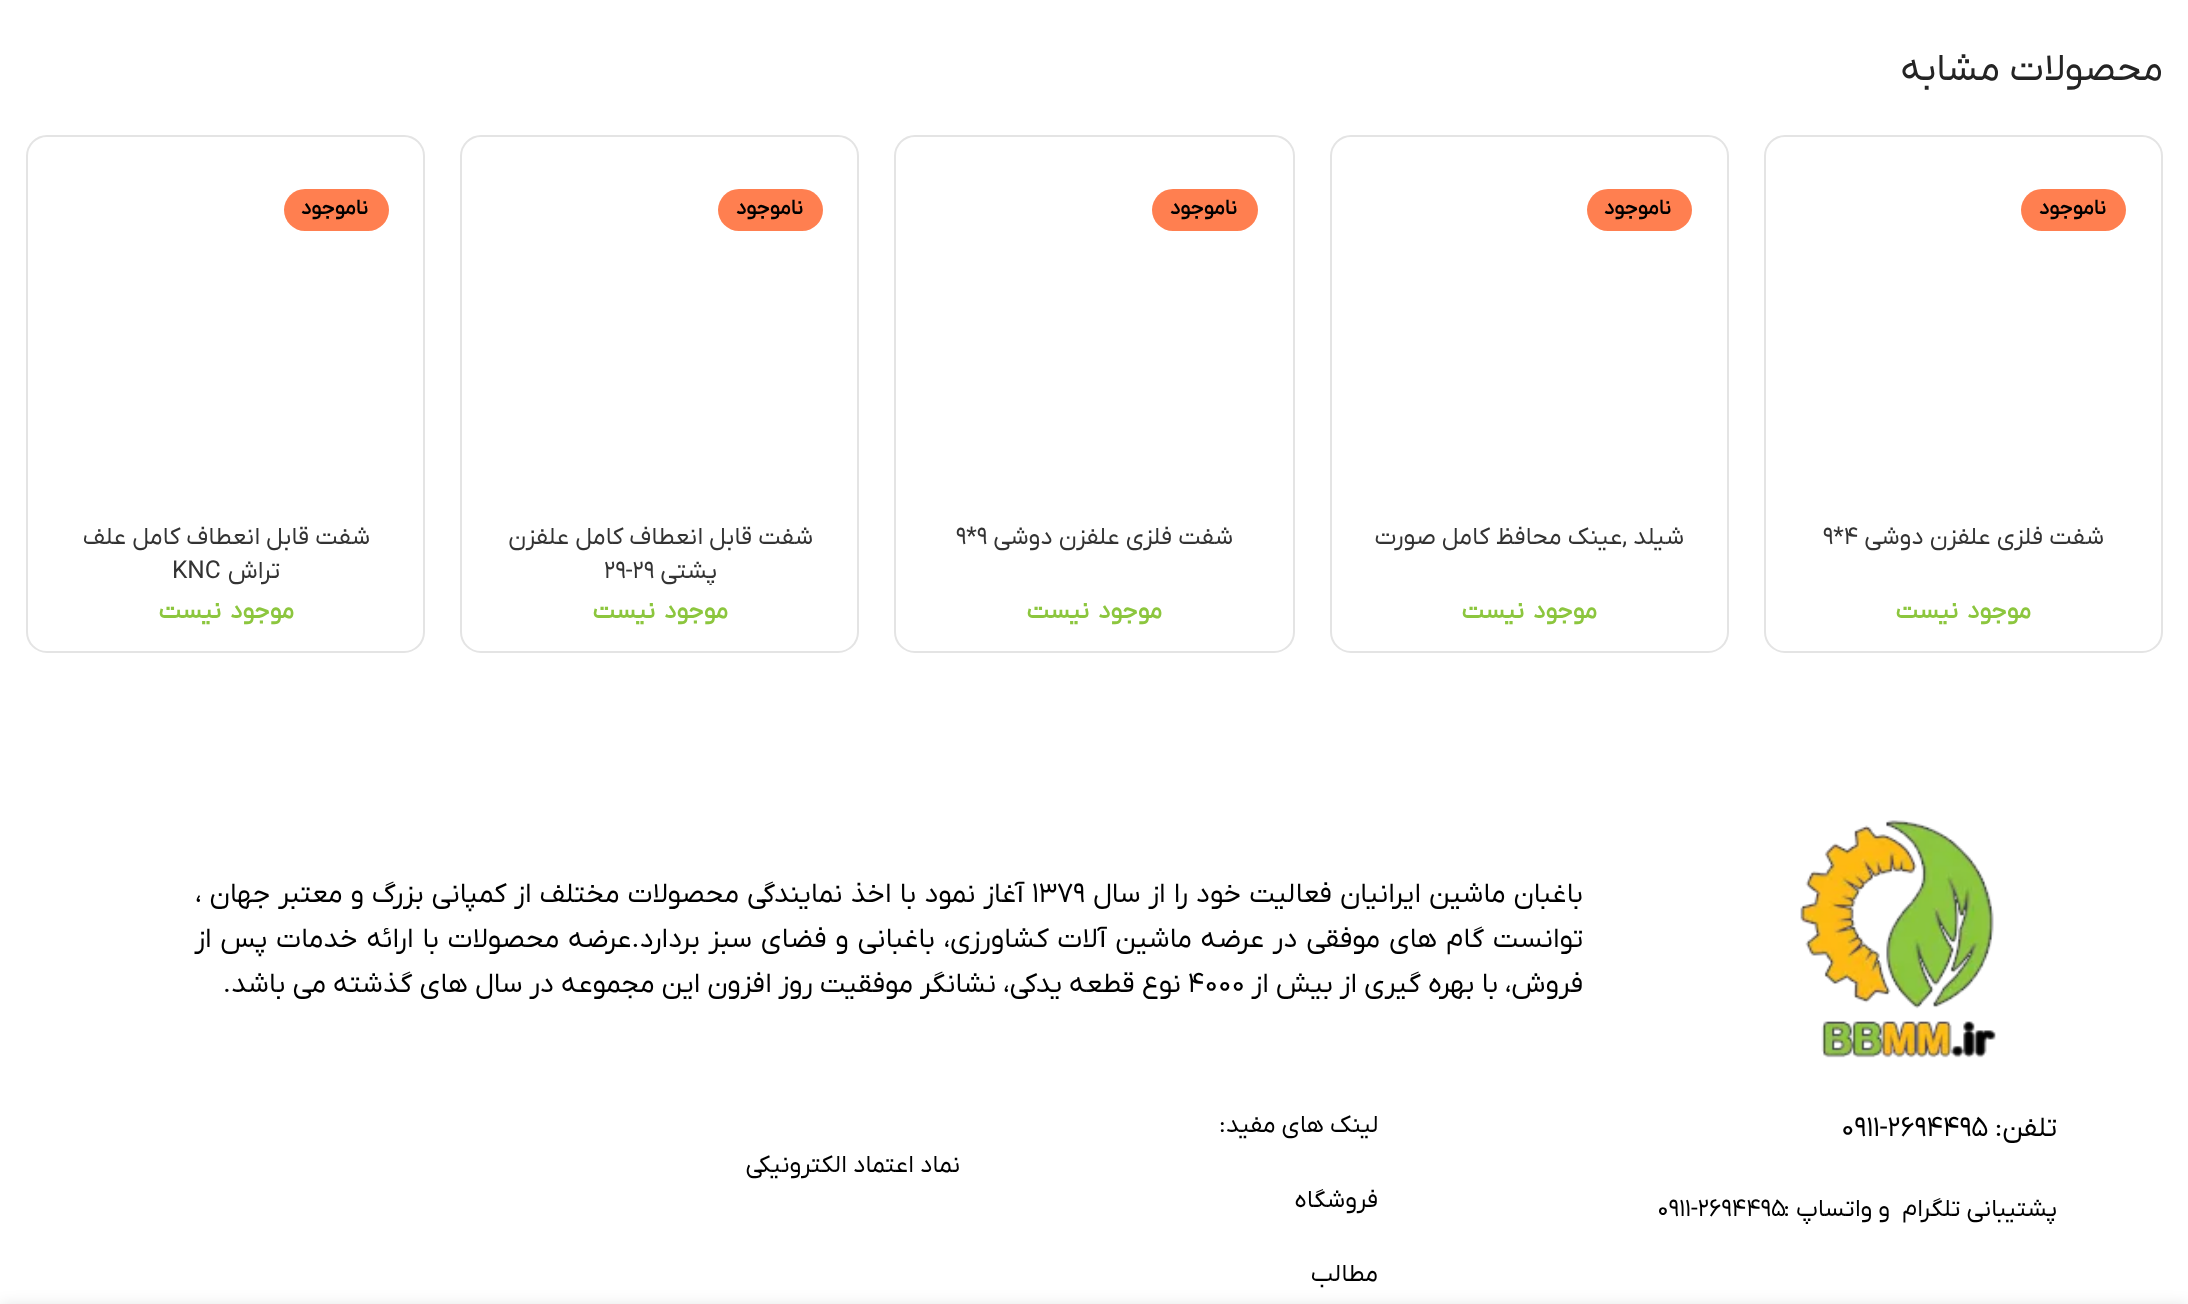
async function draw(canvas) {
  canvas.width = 2188
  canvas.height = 1304
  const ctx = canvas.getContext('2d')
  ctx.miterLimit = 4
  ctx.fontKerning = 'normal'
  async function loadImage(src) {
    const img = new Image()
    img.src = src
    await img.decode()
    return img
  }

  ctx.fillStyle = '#fff'
  ctx.fillRect(0, 0, 2188, 1304)
  ctx.direction = 'rtl'
  ctx.font = '38.5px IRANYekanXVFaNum'
  ctx.fillStyle = '#242424'
  ctx.fillText('محصولات مشابه', 2163, 80)
  ctx.beginPath()
  ctx.roundRect(1765, 136, 397, 516, 20)
  ctx.strokeStyle = '#e4e4e4'
  ctx.lineWidth = 2
  ctx.stroke()
  ctx.fillStyle = '#ff7f50'
  ctx.beginPath()
  ctx.roundRect(2021, 189, 105, 42, 21)
  ctx.fill()
  ctx.font = 'bold 21px IRANYekanXVFaNum'
  ctx.fillStyle = '#000'
  ctx.fillText('ناموجود', 2106, 214)
  ctx.font = '24.5px IRANYekanXVFaNum'
  ctx.fillStyle = '#333'
  ctx.fillText('شفت فلزی علفزن دوشی', 2104, 544)
  ctx.direction = 'ltr'
  ctx.fillText('۹*4', 1823, 544)
  ctx.wordSpacing = '3px'
  ctx.direction = 'rtl'
  ctx.font = 'bold 24.5px IRANYekanXVFaNum'
  ctx.fillStyle = '#8cc63e'
  ctx.fillText('موجود نیست', 2031, 618)
  ctx.beginPath()
  ctx.roundRect(1331, 136, 397, 516, 20)
  ctx.stroke()
  ctx.fillStyle = '#ff7f50'
  ctx.beginPath()
  ctx.roundRect(1587, 189, 105, 42, 21)
  ctx.fill()
  ctx.wordSpacing = '0px'
  ctx.font = 'bold 21px IRANYekanXVFaNum'
  ctx.fillStyle = '#000'
  ctx.fillText('ناموجود', 1671, 214)
  ctx.font = '24.5px IRANYekanXVFaNum'
  ctx.fillStyle = '#333'
  ctx.fillText('شیلد ,عینک محافظ کامل صورت', 1684, 544)
  ctx.wordSpacing = '3px'
  ctx.font = 'bold 24.5px IRANYekanXVFaNum'
  ctx.fillStyle = '#8cc63e'
  ctx.fillText('موجود نیست', 1597, 618)
  ctx.beginPath()
  ctx.roundRect(895, 136, 399, 516, 20)
  ctx.stroke()
  ctx.fillStyle = '#ff7f50'
  ctx.beginPath()
  ctx.roundRect(1152, 189, 106, 42, 21)
  ctx.fill()
  ctx.wordSpacing = '0px'
  ctx.font = 'bold 21px IRANYekanXVFaNum'
  ctx.fillStyle = '#000'
  ctx.fillText('ناموجود', 1237, 214)
  ctx.font = '24.5px IRANYekanXVFaNum'
  ctx.fillStyle = '#333'
  ctx.fillText('شفت فلزی علفزن دوشی', 1233, 544)
  ctx.direction = 'ltr'
  ctx.fillText('۹*۹', 956, 544)
  ctx.wordSpacing = '3px'
  ctx.direction = 'rtl'
  ctx.font = 'bold 24.5px IRANYekanXVFaNum'
  ctx.fillStyle = '#8cc63e'
  ctx.fillText('موجود نیست', 1162, 618)
  ctx.beginPath()
  ctx.roundRect(461, 136, 397, 516, 20)
  ctx.stroke()
  ctx.fillStyle = '#ff7f50'
  ctx.beginPath()
  ctx.roundRect(718, 189, 105, 42, 21)
  ctx.fill()
  ctx.wordSpacing = '0px'
  ctx.font = 'bold 21px IRANYekanXVFaNum'
  ctx.fillStyle = '#000'
  ctx.fillText('ناموجود', 803, 214)
  ctx.font = '24.5px IRANYekanXVFaNum'
  ctx.fillStyle = '#333'
  ctx.fillText('شفت قابل انعطاف کامل علفزن', 813, 544)
  ctx.save()
  ctx.beginPath()
  ctx.rect(488, 522, 343, 63)
  ctx.clip()
  ctx.fillText('پشتی', 717, 578)
  ctx.restore()
  ctx.direction = 'ltr'
  ctx.fillText('29-29', 604, 578)
  ctx.wordSpacing = '3px'
  ctx.direction = 'rtl'
  ctx.font = 'bold 24.5px IRANYekanXVFaNum'
  ctx.fillStyle = '#8cc63e'
  ctx.fillText('موجود نیست', 728, 618)
  ctx.beginPath()
  ctx.roundRect(27, 136, 397, 516, 20)
  ctx.stroke()
  ctx.fillStyle = '#ff7f50'
  ctx.beginPath()
  ctx.roundRect(284, 189, 105, 42, 21)
  ctx.fill()
  ctx.wordSpacing = '0px'
  ctx.font = 'bold 21px IRANYekanXVFaNum'
  ctx.fillStyle = '#000'
  ctx.fillText('ناموجود', 368, 214)
  ctx.font = '24.5px IRANYekanXVFaNum'
  ctx.fillStyle = '#333'
  ctx.fillText('شفت قابل انعطاف کامل علف', 370, 544)
  ctx.fillText('تراش', 280, 578)
  ctx.direction = 'ltr'
  ctx.fillText('KNC', 172, 578)
  ctx.wordSpacing = '3px'
  ctx.direction = 'rtl'
  ctx.font = 'bold 24.5px IRANYekanXVFaNum'
  ctx.fillStyle = '#8cc63e'
  ctx.fillText('موجود نیست', 294, 618)
  ctx.drawImage(await loadImage('image0.png'), 1800, 820, 196, 238)
  ctx.wordSpacing = '1px'
  ctx.font = '28px IRANYekanXVFaNum'
  ctx.fillStyle = '#000'
  ctx.fillText('باغبان ماشین ایرانیان فعالیت خود را از سال', 1583, 902)
  ctx.wordSpacing = '0px'
  ctx.direction = 'ltr'
  ctx.fillText('۱۳۷۹', 1032, 902)
  ctx.wordSpacing = '1px'
  ctx.direction = 'rtl'
  ctx.fillText('آغاز نمود با اخذ نمایندگی محصولات مختلف از کمپانی بزرگ و معتبر جهان ،', 1024, 902)
  ctx.wordSpacing = '1.8px'
  ctx.fillText('توانست گام های موفقی در عرضه ماشین آلات کشاورزی، باغبانی و فضای سبز بردارد.عرضه محصولات با ارائه خدمات پس از', 1583, 947)
  ctx.wordSpacing = '0px'
  ctx.fillText('فروش، با بهره گیری از بیش از', 1583, 992)
  ctx.direction = 'ltr'
  ctx.fillText('۴۰۰۰', 1188, 992)
  ctx.direction = 'rtl'
  ctx.fillText('نوع قطعه یدکی، نشانگر موفقیت روز افزون این مجموعه در سال های گذشته می باشد.', 1181, 992)
  ctx.fillText('تلفن:', 2057, 1136)
  ctx.direction = 'ltr'
  ctx.fillText('0911-2694495', 1841, 1136)
  ctx.direction = 'rtl'
  ctx.font = '24.5px IRANYekanXVFaNum'
  ctx.fillText('پشتیبانی تلگرام  و واتساپ :', 2057, 1216)
  ctx.direction = 'ltr'
  ctx.fillText('0911-2694495', 1657, 1216)
  ctx.direction = 'rtl'
  ctx.fillText('لینک های مفید:', 1378, 1132)
  ctx.fillText('فروشگاه', 1378, 1207)
  ctx.fillText('مطالب', 1378, 1281)
  ctx.fillText('نماد اعتماد الکترونیکی', 960, 1172)
  ctx.fillStyle = '#0000001f'
  ctx.filter = 'blur(8px)'
  ctx.beginPath()
  ctx.rect(0, 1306, 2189, 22)
  ctx.fill()
  ctx.filter = 'none'
}

draw(document.querySelector('canvas'))
